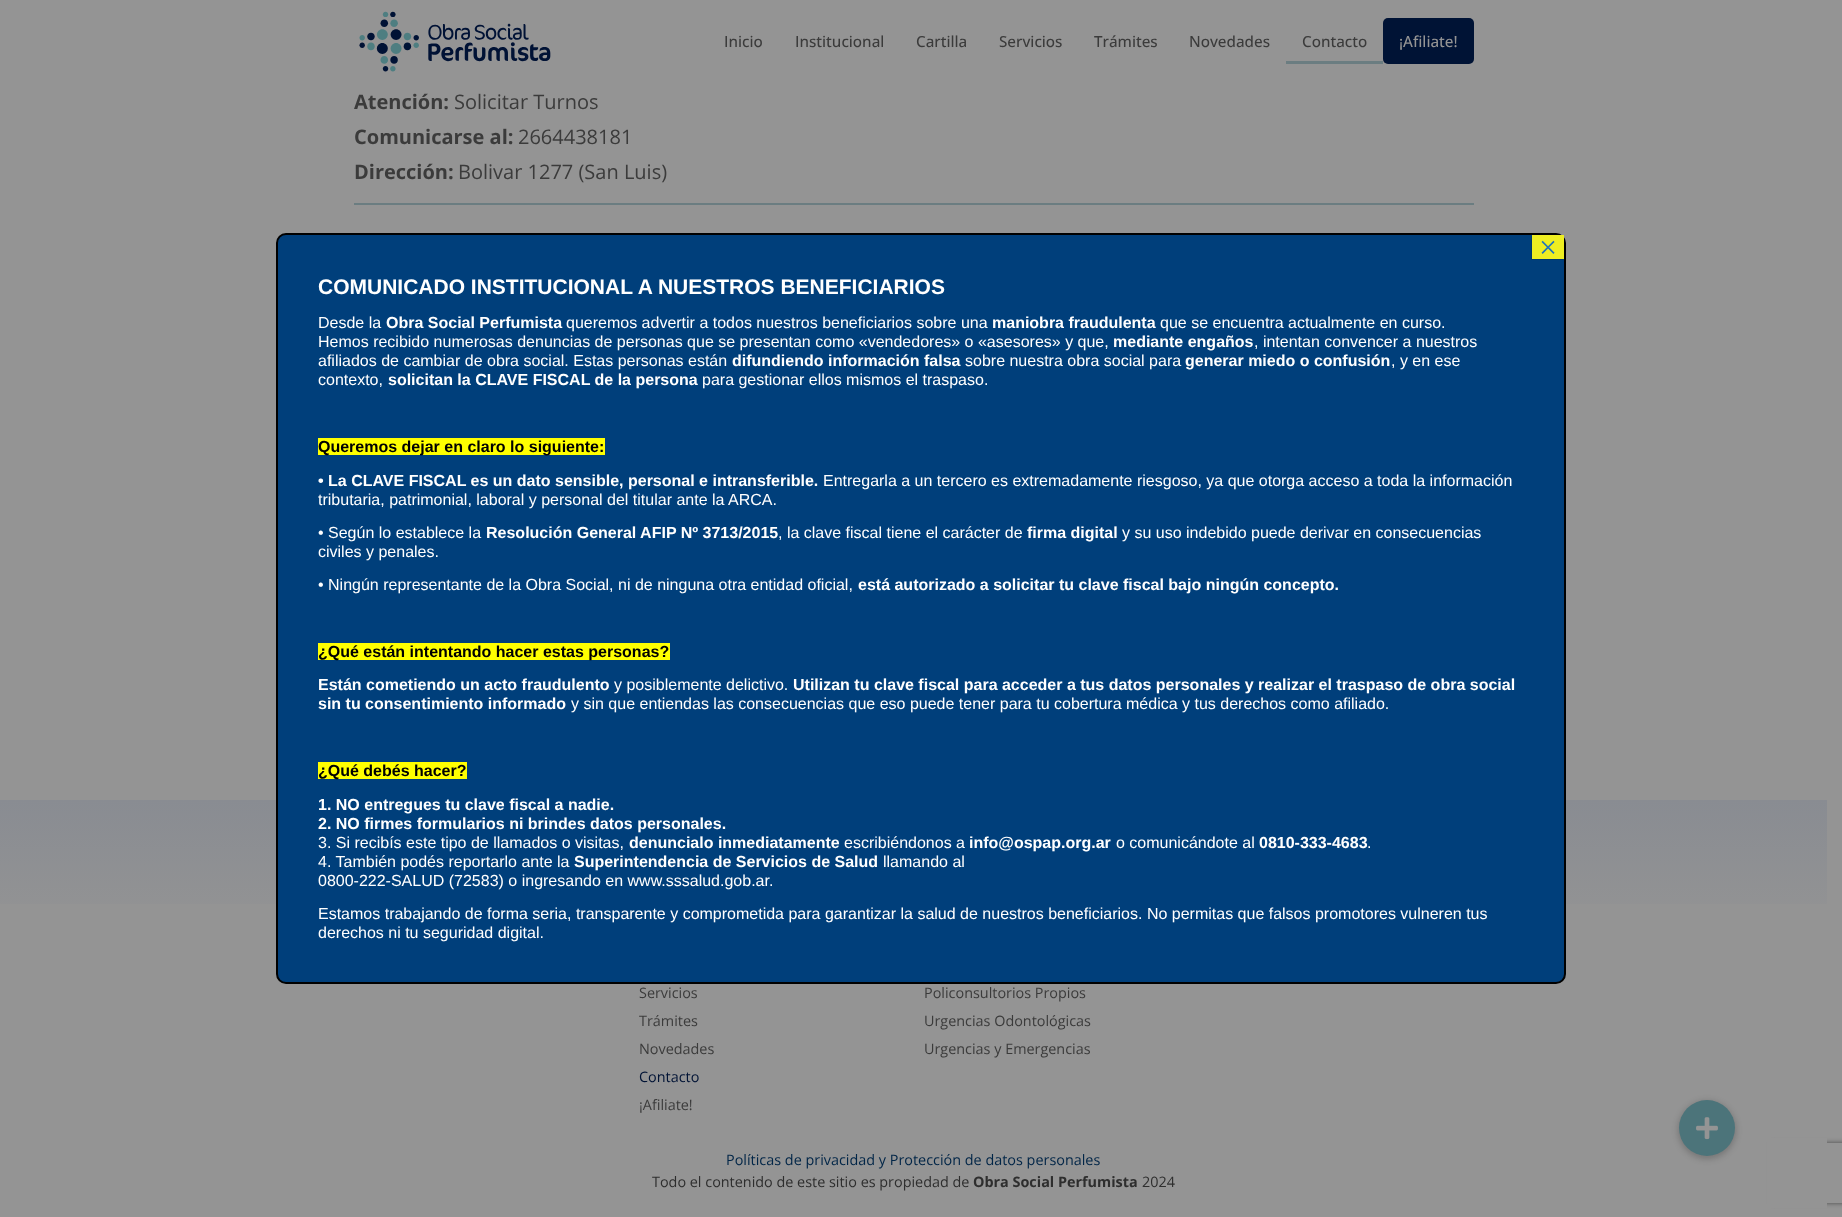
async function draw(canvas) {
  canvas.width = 1842
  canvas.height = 1217
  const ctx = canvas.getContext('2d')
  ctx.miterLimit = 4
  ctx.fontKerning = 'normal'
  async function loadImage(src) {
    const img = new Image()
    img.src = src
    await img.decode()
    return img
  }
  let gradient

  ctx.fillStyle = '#949494'
  ctx.fillRect(0, 0, 1842, 1217)
  ctx.drawImage(await loadImage('image0.png'), 359, 11, 192, 61)
  ctx.font = '500 15.25px Open Sans'
  ctx.fillStyle = '#3b3b3b'
  ctx.fillText('Inicio', 724, 47)
  ctx.fillText('Institucional', 795, 47)
  ctx.fillText('Cartilla', 916, 47)
  ctx.fillText('Servicios', 999, 47)
  ctx.fillText('Trámites', 1094, 47)
  ctx.fillText('Novedades', 1189, 47)
  ctx.fillText('Contacto', 1302, 47)
  ctx.fillStyle = '#6b7d81'
  ctx.fillRect(1286, 61, 97, 3)
  ctx.fillStyle = '#001335'
  ctx.beginPath()
  ctx.roundRect(1383, 18, 91, 46, 5)
  ctx.fill()
  ctx.fillStyle = '#949494'
  ctx.fillText('¡Afiliate!', 1399, 47)
  ctx.font = 'bold 20px Open Sans'
  ctx.fillStyle = '#3b3b3b'
  ctx.fillText('Atención:', 354, 109)
  ctx.font = '20px Open Sans'
  ctx.fillText('Solicitar Turnos', 454, 109)
  ctx.font = 'bold 20px Open Sans'
  ctx.fillText('Comunicarse al:', 354, 144)
  ctx.font = '20px Open Sans'
  ctx.fillText('2664438181', 518, 144)
  ctx.font = 'bold 20px Open Sans'
  ctx.fillText('Dirección:', 354, 179)
  ctx.font = '20px Open Sans'
  ctx.fillText('Bolivar 1277 (San Luis)', 458, 179)
  ctx.fillStyle = '#6b7d81'
  ctx.fillRect(354, 203, 1120, 2)
  gradient = ctx.createLinearGradient(914, 800, 914, 1129)
  gradient.addColorStop(0, '#898c92')
  gradient.addColorStop(0.41, '#949494')
  ctx.fillStyle = gradient
  ctx.fillRect(0, 800, 1827, 104)
  ctx.fillStyle = '#003f7b'
  ctx.beginPath()
  ctx.roundRect(277, 234, 1288, 749, 9)
  ctx.fill()
  ctx.strokeStyle = '#000'
  ctx.lineWidth = 2
  ctx.stroke()
  ctx.fillStyle = '#0202021a'
  ctx.filter = 'blur(0.5px)'
  ctx.beginPath()
  ctx.rect(1531, 236, 32, 24)
  ctx.fill()
  ctx.filter = 'none'
  ctx.fillStyle = '#ee2'
  ctx.fillRect(1532, 235, 32, 24)
  ctx.font = '32px Liberation Serif'
  ctx.fillStyle = '#1e73be'
  ctx.fillText('×', 1539, 258)
  ctx.font = 'bold 21px Liberation Sans'
  ctx.fillStyle = '#fff'
  ctx.fillText('COMUNICADO INSTITUCIONAL A NUESTROS BENEFICIARIOS', 318, 294)
  ctx.font = '16px Liberation Sans'
  ctx.fillText('Desde la', 318, 328)
  ctx.font = 'bold 16px Liberation Sans'
  ctx.fillText('Obra Social Perfumista', 386, 328)
  ctx.font = '16px Liberation Sans'
  ctx.fillText('queremos advertir a todos nuestros beneficiarios sobre una', 566, 328)
  ctx.font = 'bold 16px Liberation Sans'
  ctx.fillText('maniobra fraudulenta', 992, 328)
  ctx.font = '16px Liberation Sans'
  ctx.fillText('que se encuentra actualmente en curso.', 1160, 328)
  ctx.fillText('Hemos recibido numerosas denuncias de personas que se presentan como «vendedores» o «asesores» y que,', 318, 347)
  ctx.font = 'bold 16px Liberation Sans'
  ctx.fillText('mediante engaños', 1113, 347)
  ctx.font = '16px Liberation Sans'
  ctx.fillText(', intentan convencer a nuestros', 1254, 347)
  ctx.fillText('afiliados de cambiar de obra social. Estas personas están', 318, 366)
  ctx.font = 'bold 16px Liberation Sans'
  ctx.fillText('difundiendo información falsa', 732, 366)
  ctx.font = '16px Liberation Sans'
  ctx.fillText('sobre nuestra obra social para', 965, 366)
  ctx.font = 'bold 16px Liberation Sans'
  ctx.fillText('generar miedo o confusión', 1185, 366)
  ctx.font = '16px Liberation Sans'
  ctx.fillText(', y en ese', 1391, 366)
  ctx.fillText('contexto,', 318, 385)
  ctx.font = 'bold 16px Liberation Sans'
  ctx.fillText('solicitan la CLAVE FISCAL de la persona', 388, 385)
  ctx.font = '16px Liberation Sans'
  ctx.fillText('para gestionar ellos mismos el traspaso.', 702, 385)
  ctx.fillStyle = '#ff0'
  ctx.fillRect(318, 438, 287, 17)
  ctx.font = 'bold 16px Liberation Sans'
  ctx.fillStyle = '#000'
  ctx.fillText('Queremos dejar en claro lo siguiente:', 318, 452)
  ctx.fillStyle = '#fff'
  ctx.fillText('• La CLAVE FISCAL es un dato sensible, personal e intransferible.', 318, 486)
  ctx.font = '16px Liberation Sans'
  ctx.fillText('Entregarla a un tercero es extremadamente riesgoso, ya que otorga acceso a toda la información', 823, 486)
  ctx.fillText('tributaria, patrimonial, laboral y personal del titular ante la ARCA.', 318, 505)
  ctx.fillText('• Según lo establece la', 318, 538)
  ctx.font = 'bold 16px Liberation Sans'
  ctx.fillText('Resolución General AFIP Nº 3713/2015', 486, 538)
  ctx.font = '16px Liberation Sans'
  ctx.fillText(', la clave fiscal tiene el carácter de', 778, 538)
  ctx.font = 'bold 16px Liberation Sans'
  ctx.fillText('firma digital', 1027, 538)
  ctx.font = '16px Liberation Sans'
  ctx.fillText('y su uso indebido puede derivar en consecuencias', 1122, 538)
  ctx.fillText('civiles y penales.', 318, 557)
  ctx.fillText('• Ningún representante de la Obra Social, ni de ninguna otra entidad oficial,', 318, 590)
  ctx.font = 'bold 16px Liberation Sans'
  ctx.fillText('está autorizado a solicitar tu clave fiscal bajo ningún concepto.', 858, 590)
  ctx.fillStyle = '#ff0'
  ctx.fillRect(318, 643, 352, 17)
  ctx.fillStyle = '#000'
  ctx.fillText('¿Qué están intentando hacer estas personas?', 318, 657)
  ctx.fillStyle = '#fff'
  ctx.fillText('Están cometiendo un acto fraudulento', 318, 690)
  ctx.font = '16px Liberation Sans'
  ctx.fillText('y posiblemente delictivo.', 614, 690)
  ctx.font = 'bold 16px Liberation Sans'
  ctx.fillText('Utilizan tu clave fiscal para acceder a tus datos personales y realizar el traspaso de obra social', 793, 690)
  ctx.fillText('sin tu consentimiento informado', 318, 709)
  ctx.font = '16px Liberation Sans'
  ctx.fillText('y sin que entiendas las consecuencias que eso puede tener para tu cobertura médica y tus derechos como afiliado.', 571, 709)
  ctx.fillStyle = '#ff0'
  ctx.fillRect(318, 762, 149, 17)
  ctx.font = 'bold 16px Liberation Sans'
  ctx.fillStyle = '#000'
  ctx.fillText('¿Qué debés hacer?', 318, 776)
  ctx.fillStyle = '#fff'
  ctx.fillText('1. NO entregues tu clave fiscal a nadie.', 318, 810)
  ctx.fillText('2. NO firmes formularios ni brindes datos personales.', 318, 829)
  ctx.font = '16px Liberation Sans'
  ctx.fillText('3. Si recibís este tipo de llamados o visitas,', 318, 848)
  ctx.font = 'bold 16px Liberation Sans'
  ctx.fillText('denuncialo inmediatamente', 629, 848)
  ctx.font = '16px Liberation Sans'
  ctx.fillText('escribiéndonos a', 844, 848)
  ctx.font = 'bold 16px Liberation Sans'
  ctx.fillText('info@ospap.org.ar', 969, 848)
  ctx.font = '16px Liberation Sans'
  ctx.fillText('o comunicándote al', 1116, 848)
  ctx.font = 'bold 16px Liberation Sans'
  ctx.fillText('0810-333-4683', 1259, 848)
  ctx.font = '16px Liberation Sans'
  ctx.fillText('.', 1367, 848)
  ctx.fillText('4. También podés reportarlo ante la', 318, 867)
  ctx.font = 'bold 16px Liberation Sans'
  ctx.fillText('Superintendencia de Servicios de Salud', 574, 867)
  ctx.font = '16px Liberation Sans'
  ctx.fillText('llamando al', 883, 867)
  ctx.fillText('0800-222-SALUD (72583) o ingresando en www.sssalud.gob.ar.', 318, 886)
  ctx.fillText('Estamos trabajando de forma seria, transparente y comprometida para garantizar la salud de nuestros beneficiarios. No permitas que falsos promotores vulneren tus', 318, 919)
  ctx.fillText('derechos ni tu seguridad digital.', 318, 938)
  ctx.font = '14.4px Open Sans'
  ctx.fillStyle = '#3b3b3b'
  ctx.fillText('Servicios', 639, 998)
  ctx.fillText('Trámites', 639, 1026)
  ctx.fillText('Novedades', 639, 1054)
  ctx.fillStyle = '#001335'
  ctx.fillText('Contacto', 639, 1082)
  ctx.fillStyle = '#3b3b3b'
  ctx.fillText('¡Afiliate!', 639, 1110)
  ctx.fillText('Policonsultorios Propios', 924, 998)
  ctx.fillText('Urgencias Odontológicas', 924, 1026)
  ctx.fillText('Urgencias y Emergencias', 924, 1054)
  ctx.save()
  ctx.beginPath()
  ctx.moveTo(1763, 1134)
  ctx.lineTo(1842, 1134)
  ctx.lineTo(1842, 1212)
  ctx.lineTo(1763, 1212)
  ctx.closePath()
  ctx.moveTo(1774, 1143)
  ctx.lineTo(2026, 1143)
  ctx.bezierCurveTo(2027, 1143, 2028, 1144, 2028, 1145)
  ctx.lineTo(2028, 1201)
  ctx.bezierCurveTo(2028, 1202, 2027, 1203, 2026, 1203)
  ctx.lineTo(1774, 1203)
  ctx.bezierCurveTo(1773, 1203, 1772, 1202, 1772, 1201)
  ctx.lineTo(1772, 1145)
  ctx.bezierCurveTo(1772, 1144, 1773, 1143, 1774, 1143)
  ctx.closePath()
  ctx.clip('evenodd')
  ctx.fillStyle = '#4a4a4a'
  ctx.filter = 'blur(2.5px)'
  ctx.beginPath()
  ctx.roundRect(1772, 1143, 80, 60, 2)
  ctx.fill()
  ctx.filter = 'none'
  ctx.restore()
  ctx.fillStyle = '#949494'
  ctx.fillRect(1767, 1138, 60, 70)
  ctx.fillStyle = '#002547'
  ctx.fillText('Políticas de privacidad y Protección de datos personales', 726, 1165)
  ctx.fillStyle = '#2e2e2e'
  ctx.fillText('Todo el contenido de este sitio es propiedad de', 652, 1187)
  ctx.font = 'bold 14.4px Open Sans'
  ctx.fillText('Obra Social Perfumista', 973, 1187)
  ctx.font = '14.4px Open Sans'
  ctx.fillText('2024', 1142, 1187)
  ctx.fillStyle = '#00000033'
  ctx.filter = 'blur(3px)'
  ctx.beginPath()
  ctx.roundRect(1678, 1101, 58, 58, 29)
  ctx.fill()
  ctx.filter = 'none'
  ctx.fillStyle = '#4c747a'
  ctx.beginPath()
  ctx.arc(1707, 1128, 28, 0, 2 * Math.PI)
  ctx.fill()
  ctx.drawImage(await loadImage('image1.png'), 1696, 1117, 22, 23)
}

draw(document.querySelector('canvas'))
